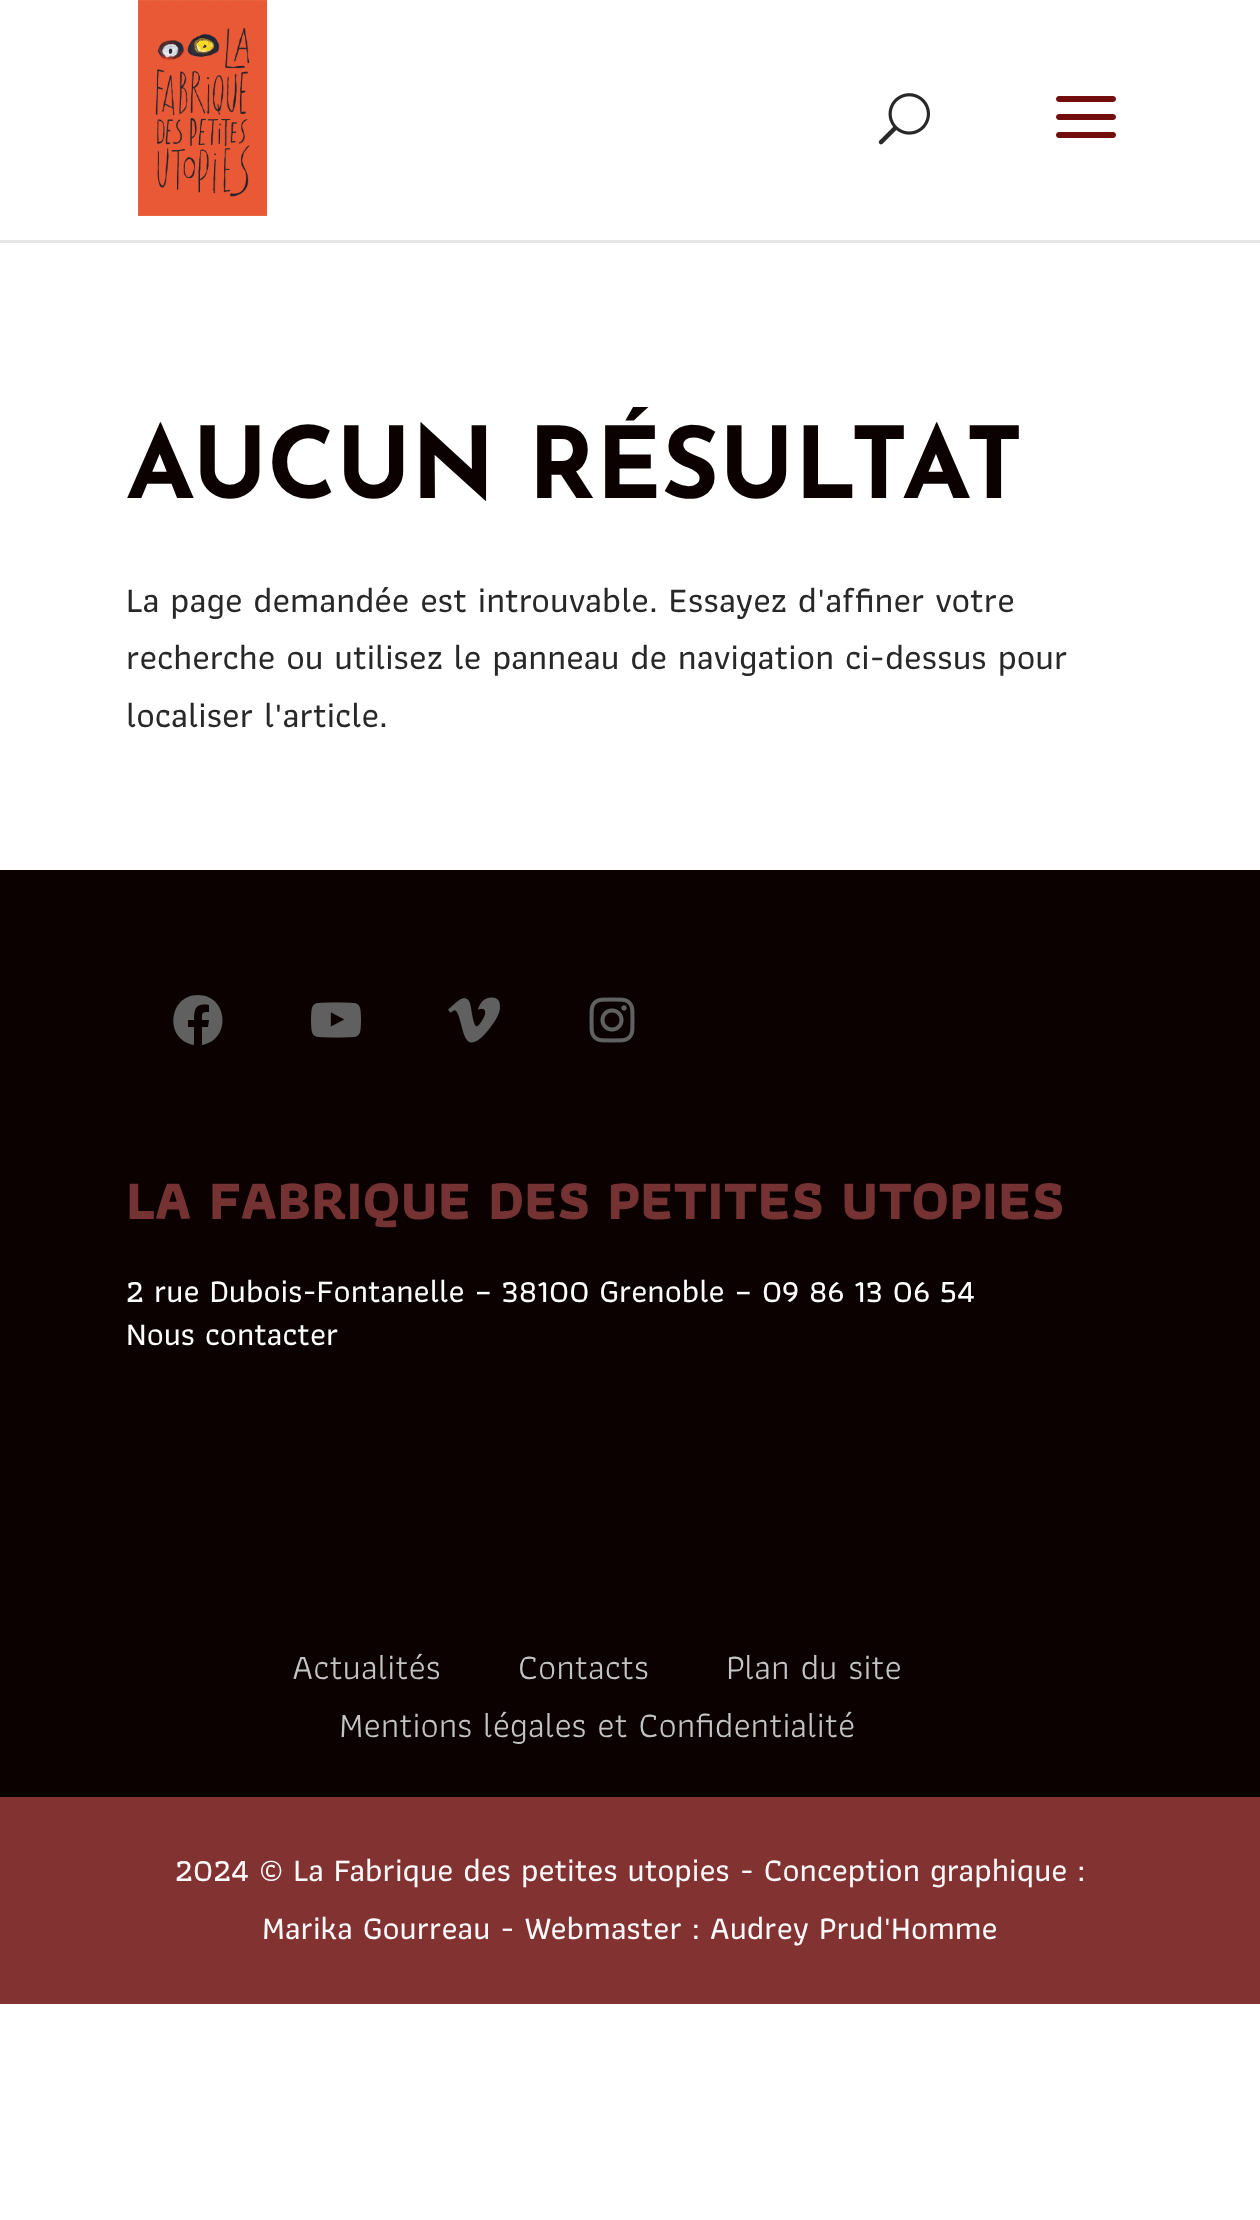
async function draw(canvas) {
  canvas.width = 1260
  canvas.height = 2220
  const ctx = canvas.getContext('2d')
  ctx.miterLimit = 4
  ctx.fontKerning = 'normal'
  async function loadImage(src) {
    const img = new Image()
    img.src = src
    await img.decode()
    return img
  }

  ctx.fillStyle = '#fff'
  ctx.fillRect(0, 0, 1260, 2220)
  ctx.fillStyle = '#e6e6e6'
  ctx.fillRect(0, 240, 1260, 3)
  ctx.drawImage(await loadImage('image0.png'), 138, 0, 129, 216)
  ctx.drawImage(await loadImage('image1.png'), 878, 93, 52, 52)
  ctx.drawImage(await loadImage('image2.png'), 1056, 96, 60, 42)
  ctx.font = 'bold 99px Josefin Sans'
  ctx.fillStyle = '#0a0100'
  ctx.fillText('AUCUN RÉSULTAT', 126, 498)
  ctx.font = '500 36px Athiti'
  ctx.fillStyle = '#282828'
  ctx.fillText('La page demandée est introuvable. Essayez d\'affiner votre', 126, 612)
  ctx.fillText('recherche ou utilisez le panneau de navigation ci-dessus pour', 126, 669)
  ctx.fillText('localiser l\'article.', 126, 727)
  ctx.fillStyle = '#0a0100'
  ctx.fillRect(0, 870, 1260, 927)
  ctx.fillStyle = '#606060'
  ctx.beginPath()
  ctx.moveTo(198, 995)
  ctx.bezierCurveTo(168, 995, 164, 1040, 194, 1045)
  ctx.lineTo(194, 1027)
  ctx.lineTo(188, 1027)
  ctx.lineTo(188, 1020)
  ctx.lineTo(194, 1020)
  ctx.bezierCurveTo(194, 1008, 196, 1003, 209, 1005)
  ctx.lineTo(209, 1012)
  ctx.bezierCurveTo(201, 1012, 202, 1013, 202, 1020)
  ctx.lineTo(209, 1020)
  ctx.lineTo(208, 1027)
  ctx.lineTo(202, 1027)
  ctx.lineTo(202, 1045)
  ctx.bezierCurveTo(232, 1040, 228, 995, 198, 995)
  ctx.closePath()
  ctx.fill()
  ctx.drawImage(await loadImage('image3.png'), 311, 1002, 50, 36)
  ctx.drawImage(await loadImage('image4.png'), 448, 997, 52, 46)
  ctx.drawImage(await loadImage('image5.png'), 589, 997, 46, 46)
  ctx.font = 'bold 57px Athiti'
  ctx.fillStyle = '#753232'
  ctx.fillText('LA FABRIQUE DES PETITES UTOPIES', 126, 1219)
  ctx.font = '500 33px Athiti'
  ctx.fillStyle = '#fff'
  ctx.fillText('2 rue Dubois-Fontanelle – 38100 Grenoble – 09 86 13 06 54', 126, 1302)
  ctx.fillText('Nous contacter', 126, 1345)
  ctx.font = '36px Athiti'
  ctx.fillStyle = '#c4c4c4'
  ctx.fillText('Actualités', 292, 1679)
  ctx.fillText('Contacts', 518, 1679)
  ctx.fillText('Plan du site', 726, 1679)
  ctx.fillText('Mentions légales et Confidentialité', 339, 1737)
  ctx.fillStyle = '#833232'
  ctx.fillRect(0, 1797, 1260, 207)
  ctx.font = '500 33px Athiti'
  ctx.fillStyle = '#f9f9f9'
  ctx.fillText('2024 © La Fabrique des petites utopies - Conception graphique :', 175, 1881)
  ctx.fillText('Marika Gourreau - Webmaster : Audrey Prud\'Homme', 262, 1939)
}

draw(document.querySelector('canvas'))
